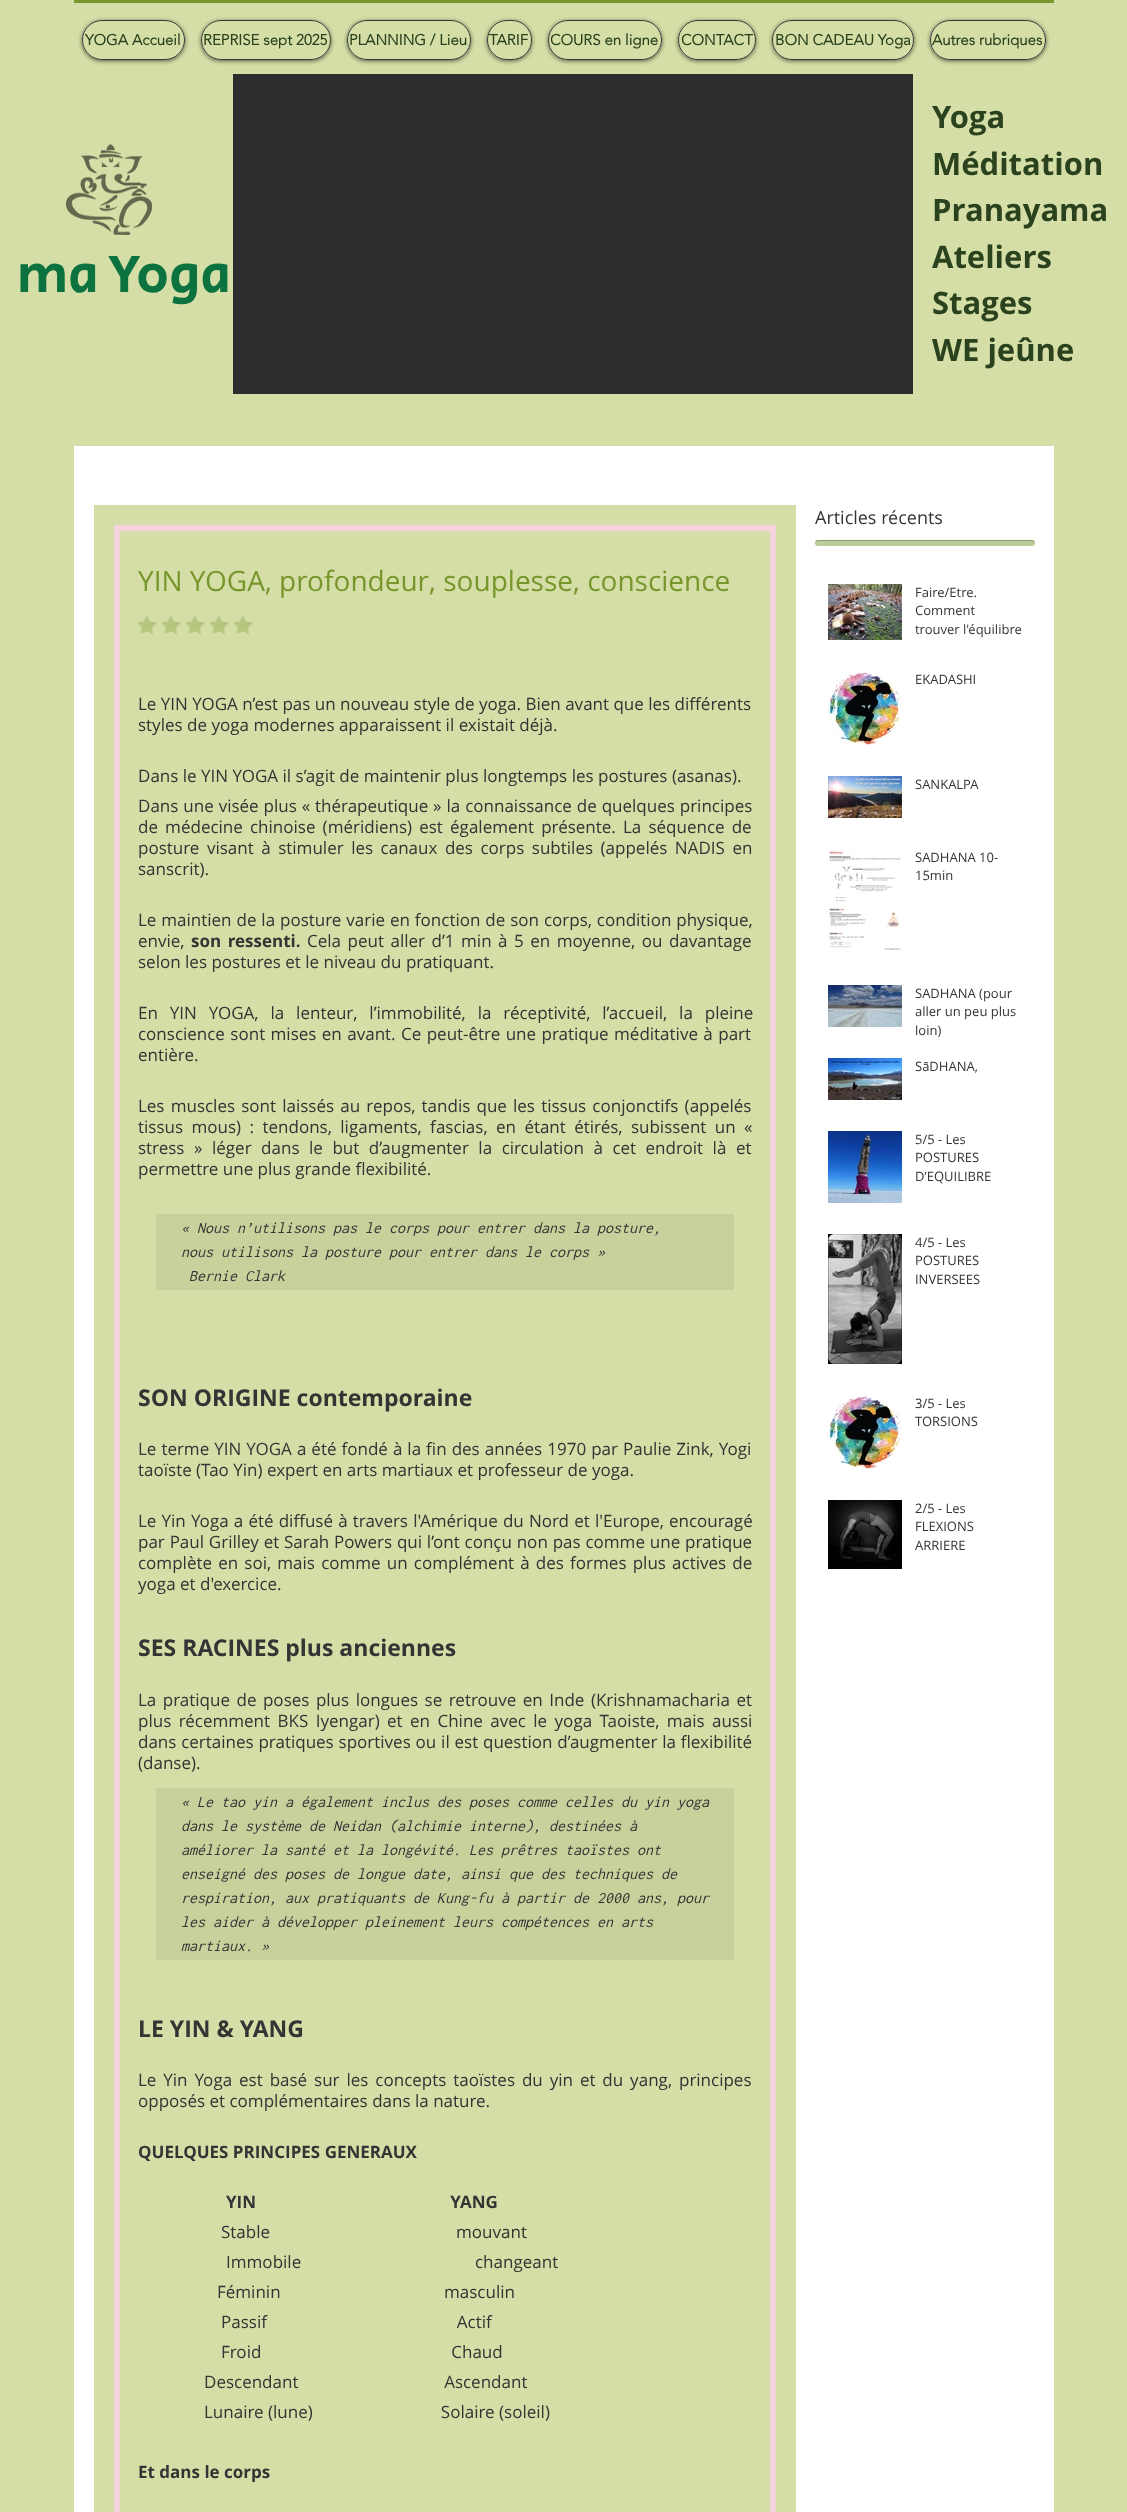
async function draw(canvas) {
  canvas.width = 1127
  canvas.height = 2512
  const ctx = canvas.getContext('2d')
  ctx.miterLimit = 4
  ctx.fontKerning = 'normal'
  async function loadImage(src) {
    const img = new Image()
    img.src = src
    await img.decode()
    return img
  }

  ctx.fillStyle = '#d4dea6'
  ctx.fillRect(0, 0, 1127, 2512)
  ctx.fillStyle = '#77962c'
  ctx.fillRect(74, 0, 980, 3)
  ctx.save()
  ctx.beginPath()
  ctx.moveTo(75, 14)
  ctx.lineTo(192, 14)
  ctx.lineTo(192, 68)
  ctx.lineTo(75, 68)
  ctx.closePath()
  ctx.moveTo(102, 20)
  ctx.lineTo(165, 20)
  ctx.bezierCurveTo(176, 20, 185, 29, 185, 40)
  ctx.bezierCurveTo(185, 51, 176, 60, 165, 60)
  ctx.lineTo(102, 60)
  ctx.bezierCurveTo(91, 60, 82, 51, 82, 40)
  ctx.bezierCurveTo(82, 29, 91, 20, 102, 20)
  ctx.closePath()
  ctx.clip('evenodd')
  ctx.fillStyle = '#00000099'
  ctx.filter = 'blur(2px)'
  ctx.beginPath()
  ctx.roundRect(82, 21, 103, 40, 20)
  ctx.fill()
  ctx.filter = 'none'
  ctx.restore()
  ctx.fillStyle = '#d4dea6e6'
  ctx.beginPath()
  ctx.roundRect(82.5, 20.5, 102, 39, 19.5)
  ctx.fill()
  ctx.strokeStyle = '#383838'
  ctx.stroke()
  ctx.font = 'bold 15px "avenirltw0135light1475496"'
  ctx.fillStyle = '#2b421e'
  ctx.fillText('YOGA Accueil', 85, 45)
  ctx.save()
  ctx.beginPath()
  ctx.moveTo(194, 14)
  ctx.lineTo(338, 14)
  ctx.lineTo(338, 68)
  ctx.lineTo(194, 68)
  ctx.closePath()
  ctx.moveTo(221, 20)
  ctx.lineTo(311, 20)
  ctx.bezierCurveTo(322, 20, 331, 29, 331, 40)
  ctx.bezierCurveTo(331, 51, 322, 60, 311, 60)
  ctx.lineTo(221, 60)
  ctx.bezierCurveTo(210, 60, 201, 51, 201, 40)
  ctx.bezierCurveTo(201, 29, 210, 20, 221, 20)
  ctx.closePath()
  ctx.clip('evenodd')
  ctx.fillStyle = '#00000099'
  ctx.filter = 'blur(2px)'
  ctx.beginPath()
  ctx.roundRect(201, 21, 130, 40, 20)
  ctx.fill()
  ctx.filter = 'none'
  ctx.restore()
  ctx.fillStyle = '#d4dea6e6'
  ctx.beginPath()
  ctx.roundRect(201.5, 20.5, 129, 39, 19.5)
  ctx.fill()
  ctx.stroke()
  ctx.fillStyle = '#2b421e'
  ctx.fillText('REPRISE sept 2025', 203, 45)
  ctx.save()
  ctx.beginPath()
  ctx.moveTo(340, 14)
  ctx.lineTo(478, 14)
  ctx.lineTo(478, 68)
  ctx.lineTo(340, 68)
  ctx.closePath()
  ctx.moveTo(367, 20)
  ctx.lineTo(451, 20)
  ctx.bezierCurveTo(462, 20, 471, 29, 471, 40)
  ctx.bezierCurveTo(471, 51, 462, 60, 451, 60)
  ctx.lineTo(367, 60)
  ctx.bezierCurveTo(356, 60, 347, 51, 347, 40)
  ctx.bezierCurveTo(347, 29, 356, 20, 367, 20)
  ctx.closePath()
  ctx.clip('evenodd')
  ctx.fillStyle = '#00000099'
  ctx.filter = 'blur(2px)'
  ctx.beginPath()
  ctx.roundRect(347, 21, 124, 40, 20)
  ctx.fill()
  ctx.filter = 'none'
  ctx.restore()
  ctx.fillStyle = '#d4dea6e6'
  ctx.beginPath()
  ctx.roundRect(347.5, 20.5, 123, 39, 19.5)
  ctx.fill()
  ctx.stroke()
  ctx.fillStyle = '#2b421e'
  ctx.fillText('PLANNING / Lieu', 349, 45)
  ctx.save()
  ctx.beginPath()
  ctx.moveTo(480, 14)
  ctx.lineTo(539, 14)
  ctx.lineTo(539, 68)
  ctx.lineTo(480, 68)
  ctx.closePath()
  ctx.moveTo(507, 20)
  ctx.lineTo(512, 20)
  ctx.bezierCurveTo(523, 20, 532, 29, 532, 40)
  ctx.bezierCurveTo(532, 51, 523, 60, 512, 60)
  ctx.lineTo(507, 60)
  ctx.bezierCurveTo(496, 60, 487, 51, 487, 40)
  ctx.bezierCurveTo(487, 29, 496, 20, 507, 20)
  ctx.closePath()
  ctx.clip('evenodd')
  ctx.fillStyle = '#00000099'
  ctx.filter = 'blur(2px)'
  ctx.beginPath()
  ctx.roundRect(487, 21, 45, 40, 20)
  ctx.fill()
  ctx.filter = 'none'
  ctx.restore()
  ctx.fillStyle = '#d4dea6e6'
  ctx.beginPath()
  ctx.roundRect(487.5, 20.5, 44, 39, 19.5)
  ctx.fill()
  ctx.stroke()
  ctx.fillStyle = '#2b421e'
  ctx.fillText('TARIF', 489, 45)
  ctx.save()
  ctx.beginPath()
  ctx.moveTo(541, 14)
  ctx.lineTo(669, 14)
  ctx.lineTo(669, 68)
  ctx.lineTo(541, 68)
  ctx.closePath()
  ctx.moveTo(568, 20)
  ctx.lineTo(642, 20)
  ctx.bezierCurveTo(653, 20, 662, 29, 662, 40)
  ctx.bezierCurveTo(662, 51, 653, 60, 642, 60)
  ctx.lineTo(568, 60)
  ctx.bezierCurveTo(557, 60, 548, 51, 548, 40)
  ctx.bezierCurveTo(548, 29, 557, 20, 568, 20)
  ctx.closePath()
  ctx.clip('evenodd')
  ctx.fillStyle = '#00000099'
  ctx.filter = 'blur(2px)'
  ctx.beginPath()
  ctx.roundRect(548, 21, 114, 40, 20)
  ctx.fill()
  ctx.filter = 'none'
  ctx.restore()
  ctx.fillStyle = '#d4dea6e6'
  ctx.beginPath()
  ctx.roundRect(548.5, 20.5, 113, 39, 19.5)
  ctx.fill()
  ctx.stroke()
  ctx.fillStyle = '#2b421e'
  ctx.fillText('COURS en ligne', 550, 45)
  ctx.save()
  ctx.beginPath()
  ctx.moveTo(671, 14)
  ctx.lineTo(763, 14)
  ctx.lineTo(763, 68)
  ctx.lineTo(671, 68)
  ctx.closePath()
  ctx.moveTo(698, 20)
  ctx.lineTo(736, 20)
  ctx.bezierCurveTo(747, 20, 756, 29, 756, 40)
  ctx.bezierCurveTo(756, 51, 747, 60, 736, 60)
  ctx.lineTo(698, 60)
  ctx.bezierCurveTo(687, 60, 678, 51, 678, 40)
  ctx.bezierCurveTo(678, 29, 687, 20, 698, 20)
  ctx.closePath()
  ctx.clip('evenodd')
  ctx.fillStyle = '#00000099'
  ctx.filter = 'blur(2px)'
  ctx.beginPath()
  ctx.roundRect(678, 21, 78, 40, 20)
  ctx.fill()
  ctx.filter = 'none'
  ctx.restore()
  ctx.fillStyle = '#d4dea6e6'
  ctx.beginPath()
  ctx.roundRect(678.5, 20.5, 77, 39, 19.5)
  ctx.fill()
  ctx.stroke()
  ctx.fillStyle = '#2b421e'
  ctx.fillText('CONTACT', 681, 45)
  ctx.save()
  ctx.beginPath()
  ctx.moveTo(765, 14)
  ctx.lineTo(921, 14)
  ctx.lineTo(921, 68)
  ctx.lineTo(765, 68)
  ctx.closePath()
  ctx.moveTo(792, 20)
  ctx.lineTo(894, 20)
  ctx.bezierCurveTo(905, 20, 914, 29, 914, 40)
  ctx.bezierCurveTo(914, 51, 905, 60, 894, 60)
  ctx.lineTo(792, 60)
  ctx.bezierCurveTo(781, 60, 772, 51, 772, 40)
  ctx.bezierCurveTo(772, 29, 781, 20, 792, 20)
  ctx.closePath()
  ctx.clip('evenodd')
  ctx.fillStyle = '#00000099'
  ctx.filter = 'blur(2px)'
  ctx.beginPath()
  ctx.roundRect(772, 21, 142, 40, 20)
  ctx.fill()
  ctx.filter = 'none'
  ctx.restore()
  ctx.fillStyle = '#d4dea6e6'
  ctx.beginPath()
  ctx.roundRect(772.5, 20.5, 141, 39, 19.5)
  ctx.fill()
  ctx.stroke()
  ctx.fillStyle = '#2b421e'
  ctx.fillText('BON CADEAU Yoga', 775, 45)
  ctx.save()
  ctx.beginPath()
  ctx.moveTo(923, 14)
  ctx.lineTo(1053, 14)
  ctx.lineTo(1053, 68)
  ctx.lineTo(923, 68)
  ctx.closePath()
  ctx.moveTo(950, 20)
  ctx.lineTo(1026, 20)
  ctx.bezierCurveTo(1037, 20, 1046, 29, 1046, 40)
  ctx.bezierCurveTo(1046, 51, 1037, 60, 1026, 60)
  ctx.lineTo(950, 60)
  ctx.bezierCurveTo(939, 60, 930, 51, 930, 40)
  ctx.bezierCurveTo(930, 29, 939, 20, 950, 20)
  ctx.closePath()
  ctx.clip('evenodd')
  ctx.fillStyle = '#00000099'
  ctx.filter = 'blur(2px)'
  ctx.beginPath()
  ctx.roundRect(930, 21, 116, 40, 20)
  ctx.fill()
  ctx.filter = 'none'
  ctx.restore()
  ctx.fillStyle = '#d4dea6e6'
  ctx.beginPath()
  ctx.roundRect(930.5, 20.5, 115, 39, 19.5)
  ctx.fill()
  ctx.stroke()
  ctx.fillStyle = '#2b421e'
  ctx.fillText('Autres rubriques', 932, 45)
  ctx.drawImage(await loadImage('image0.png'), 66, 144, 86, 91)
  ctx.font = '54px Secular One'
  ctx.fillStyle = '#0c723f'
  ctx.fillText('ma Yoga', 17, 292)
  ctx.fillStyle = '#2f2e2e'
  ctx.fillRect(233, 74, 680, 320)
  ctx.font = 'bold 31px Open Sans'
  ctx.fillStyle = '#2b421e'
  ctx.fillText('Yoga', 932, 128)
  ctx.fillText('Méditation', 932, 175)
  ctx.fillText('Pranayama', 932, 221)
  ctx.fillText('Ateliers', 932, 268)
  ctx.fillText('Stages', 932, 314)
  ctx.fillText('WE jeûne', 932, 361)
  ctx.fillStyle = '#fff'
  ctx.fillRect(74, 446, 980, 2066)
  ctx.font = '18px Open Sans'
  ctx.fillStyle = '#343434'
  ctx.fillText('Articles récents', 815, 524)
  ctx.fillStyle = '#bccc98'
  ctx.beginPath()
  ctx.roundRect(815, 540, 220, 6, 3)
  ctx.fill()
  ctx.fillStyle = '#00000040'
  ctx.beginPath()
  ctx.moveTo(818, 541)
  ctx.lineTo(1032, 541)
  ctx.lineTo(1034, 542)
  ctx.lineTo(1035, 543)
  ctx.lineTo(1034, 541)
  ctx.lineTo(1032, 540)
  ctx.lineTo(818, 540)
  ctx.bezierCurveTo(816, 540, 815, 542, 815, 543)
  ctx.bezierCurveTo(815, 542, 816, 541, 818, 541)
  ctx.closePath()
  ctx.fill()
  ctx.fillStyle = '#d4dea6'
  ctx.fillRect(94, 505, 702, 2007)
  ctx.strokeStyle = '#f4d4dc'
  ctx.lineWidth = 6
  ctx.strokeRect(117, 528, 656, 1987)
  ctx.font = '28px Open Sans'
  ctx.fillStyle = '#77962c'
  ctx.fillText('YIN YOGA, profondeur, souplesse, conscience', 138, 591)
  ctx.drawImage(await loadImage('image1.png'), 138, 616, 18, 18)
  ctx.drawImage(await loadImage('image1.png'), 162, 616, 18, 18)
  ctx.drawImage(await loadImage('image1.png'), 186, 616, 18, 18)
  ctx.drawImage(await loadImage('image1.png'), 210, 616, 18, 18)
  ctx.drawImage(await loadImage('image1.png'), 234, 616, 18, 18)
  ctx.font = '17px Open Sans'
  ctx.fillStyle = '#343434'
  ctx.fillText('Le YIN YOGA n’est pas un nouveau style de yoga. Bien avant que les différents', 138, 710)
  ctx.fillText('styles de yoga modernes apparaissent il existait déjà.', 138, 731)
  ctx.fillText('Dans le YIN YOGA il s’agit de maintenir plus longtemps les postures (asanas).', 138, 782)
  ctx.wordSpacing = '0.5px'
  ctx.fillText('Dans une visée plus « thérapeutique » la connaissance de quelques principes', 138, 812)
  ctx.wordSpacing = '2.75px'
  ctx.fillText('de médecine chinoise (méridiens) est également présente. La séquence de', 138, 833)
  ctx.wordSpacing = '3.1px'
  ctx.fillText('posture visant à stimuler les canaux des corps subtiles (appelés NADIS en', 138, 854)
  ctx.wordSpacing = '0px'
  ctx.fillText('sanscrit).', 138, 875)
  ctx.wordSpacing = '0.5px'
  ctx.fillText('Le maintien de la posture varie en fonction de son corps, condition physique,', 138, 926)
  ctx.wordSpacing = '0px'
  ctx.fillText('envie,', 138, 947)
  ctx.wordSpacing = '2.1px'
  ctx.font = 'bold 17px Open Sans'
  ctx.fillText('son ressenti.', 191, 947)
  ctx.font = '17px Open Sans'
  ctx.fillText('Cela peut aller d’1 min à 5 en moyenne, ou davantage', 307, 947)
  ctx.wordSpacing = '0px'
  ctx.fillText('selon les postures et le niveau du pratiquant.', 138, 968)
  ctx.wordSpacing = '7.5px'
  ctx.fillText('En YIN YOGA, la lenteur, l’immobilité, la réceptivité, l’accueil, la pleine', 138, 1019)
  ctx.wordSpacing = '1px'
  ctx.fillText('conscience sont mises en avant. Ce peut-être une pratique méditative à part', 138, 1040)
  ctx.wordSpacing = '0px'
  ctx.fillText('entière.', 138, 1061)
  ctx.wordSpacing = '1.75px'
  ctx.fillText('Les muscles sont laissés au repos, tandis que les tissus conjonctifs (appelés', 138, 1112)
  ctx.wordSpacing = '4px'
  ctx.fillText('tissus mous) : tendons, ligaments, fascias, en étant étirés, subissent un «', 138, 1133)
  ctx.wordSpacing = '5.1px'
  ctx.fillText('stress » léger dans le but d’augmenter la circulation à cet endroit là et', 138, 1154)
  ctx.wordSpacing = '0px'
  ctx.fillText('permettre une plus grande flexibilité.', 138, 1175)
  ctx.fillStyle = '#c7d19c'
  ctx.fillRect(156, 1214, 578, 76)
  ctx.font = 'italic 16px Inconsolata'
  ctx.fillStyle = '#343434'
  ctx.fillText('« Nous n’utilisons pas le corps pour entrer dans la posture,', 181, 1233)
  ctx.fillText('nous utilisons la posture pour entrer dans le corps »', 181, 1257)
  ctx.fillText('Bernie Clark', 189, 1281)
  ctx.font = 'bold 23px Open Sans'
  ctx.fillText('SON ORIGINE contemporaine', 138, 1406)
  ctx.wordSpacing = '0.6px'
  ctx.font = '17px Open Sans'
  ctx.fillText('Le terme YIN YOGA a été fondé à la fin des années 1970 par Paulie Zink, Yogi', 138, 1455)
  ctx.wordSpacing = '0px'
  ctx.fillText('taoïste (Tao Yin) expert en arts martiaux et professeur de yoga.', 138, 1476)
  ctx.wordSpacing = '0.75px'
  ctx.fillText('Le Yin Yoga a été diffusé à travers l\'Amérique du Nord et l\'Europe, encouragé', 138, 1527)
  ctx.wordSpacing = '0.4px'
  ctx.fillText('par Paul Grilley et Sarah Powers qui l’ont conçu non pas comme une pratique', 138, 1548)
  ctx.wordSpacing = '1.75px'
  ctx.fillText('complète en soi, mais comme un complément à des formes plus actives de', 138, 1569)
  ctx.wordSpacing = '0px'
  ctx.fillText('yoga et d\'exercice.', 138, 1590)
  ctx.font = 'bold 23px Open Sans'
  ctx.fillText('SES RACINES plus anciennes', 138, 1656)
  ctx.wordSpacing = '2.1px'
  ctx.font = '17px Open Sans'
  ctx.fillText('La pratique de poses plus longues se retrouve en Inde (Krishnamacharia et', 138, 1706)
  ctx.wordSpacing = '3px'
  ctx.fillText('plus récemment BKS Iyengar) et en Chine avec le yoga Taoiste, mais aussi', 138, 1727)
  ctx.wordSpacing = '0.4px'
  ctx.fillText('dans certaines pratiques sportives ou il est question d’augmenter la flexibilité', 138, 1748)
  ctx.wordSpacing = '0px'
  ctx.fillText('(danse).', 138, 1769)
  ctx.fillStyle = '#c7d19c'
  ctx.fillRect(156, 1788, 578, 172)
  ctx.font = 'italic 16px Inconsolata'
  ctx.fillStyle = '#343434'
  ctx.fillText('« Le tao yin a également inclus des poses comme celles du yin yoga', 181, 1807)
  ctx.fillText('dans le système de Neidan (alchimie interne), destinées à', 181, 1831)
  ctx.fillText('améliorer la santé et la longévité. Les prêtres taoïstes ont', 181, 1855)
  ctx.fillText('enseigné des poses de longue date, ainsi que des techniques de', 181, 1879)
  ctx.fillText('respiration, aux pratiquants de Kung-fu à partir de 2000 ans, pour', 181, 1903)
  ctx.fillText('les aider à développer pleinement leurs compétences en arts', 181, 1927)
  ctx.fillText('martiaux. »', 181, 1951)
  ctx.font = 'bold 23px Open Sans'
  ctx.fillText('LE YIN & YANG', 138, 2037)
  ctx.wordSpacing = '2.5px'
  ctx.font = '17px Open Sans'
  ctx.fillText('Le Yin Yoga est basé sur les concepts taoïstes du yin et du yang, principes', 138, 2086)
  ctx.wordSpacing = '0px'
  ctx.fillText('opposés et complémentaires dans la nature.', 138, 2107)
  ctx.font = 'bold 17px Open Sans'
  ctx.fillText('QUELQUES PRINCIPES GENERAUX', 138, 2158)
  ctx.fillText('YIN                                            YANG', 226, 2208)
  ctx.font = '17px Open Sans'
  ctx.fillText('Stable', 221, 2238)
  ctx.fillText('mouvant', 456, 2238)
  ctx.fillText('Immobile', 226, 2268)
  ctx.fillText('changeant', 475, 2268)
  ctx.fillText('Féminin                                     masculin', 217, 2298)
  ctx.fillText('Passif                                           Actif', 221, 2328)
  ctx.fillText('Froid                                           Chaud', 221, 2358)
  ctx.fillText('Descendant                                 Ascendant', 204, 2388)
  ctx.fillText('Lunaire (lune)                             Solaire (soleil)', 204, 2418)
  ctx.font = 'bold 17px Open Sans'
  ctx.fillText('Et dans le corps', 138, 2478)
  ctx.drawImage(await loadImage('image2.png'), 828, 584, 74, 56)
  ctx.font = '13px Open Sans'
  ctx.fillText('Faire/Etre.', 915, 597)
  ctx.fillText('Comment', 915, 615)
  ctx.fillText('trouver l\'équilibre', 915, 634)
  ctx.drawImage(await loadImage('image3.png'), 828, 671, 74, 74)
  ctx.fillText('EKADASHI', 915, 684)
  ctx.drawImage(await loadImage('image4.png'), 828, 776, 74, 42)
  ctx.fillText('SANKALPA', 915, 789)
  ctx.drawImage(await loadImage('image5.png'), 828, 849, 74, 104)
  ctx.fillText('SADHANA 10-', 915, 862)
  ctx.fillText('15min', 915, 880)
  ctx.drawImage(await loadImage('image6.png'), 828, 985, 74, 42)
  ctx.fillText('SADHANA (pour', 915, 998)
  ctx.fillText('aller un peu plus', 915, 1016)
  ctx.fillText('loin)', 915, 1035)
  ctx.drawImage(await loadImage('image7.png'), 828, 1058, 74, 42)
  ctx.fillText('SāDHANA,', 915, 1071)
  ctx.drawImage(await loadImage('image8.png'), 828, 1131, 74, 72)
  ctx.fillText('5/5 - Les', 915, 1144)
  ctx.fillText('POSTURES', 915, 1162)
  ctx.fillText('D’EQUILIBRE', 915, 1181)
  ctx.drawImage(await loadImage('image9.png'), 828, 1234, 74, 130)
  ctx.fillText('4/5 - Les', 915, 1247)
  ctx.fillText('POSTURES', 915, 1265)
  ctx.fillText('INVERSEES', 915, 1284)
  ctx.drawImage(await loadImage('image3.png'), 828, 1395, 74, 74)
  ctx.fillText('3/5 - Les', 915, 1408)
  ctx.fillText('TORSIONS', 915, 1426)
  ctx.drawImage(await loadImage('image10.png'), 828, 1500, 74, 66)
  ctx.drawImage(await loadImage('image11.png'), 828, 1566, 74, 3)
  ctx.fillText('2/5 - Les', 915, 1513)
  ctx.fillText('FLEXIONS', 915, 1531)
  ctx.fillText('ARRIERE', 915, 1550)
}

draw(document.querySelector('canvas'))
